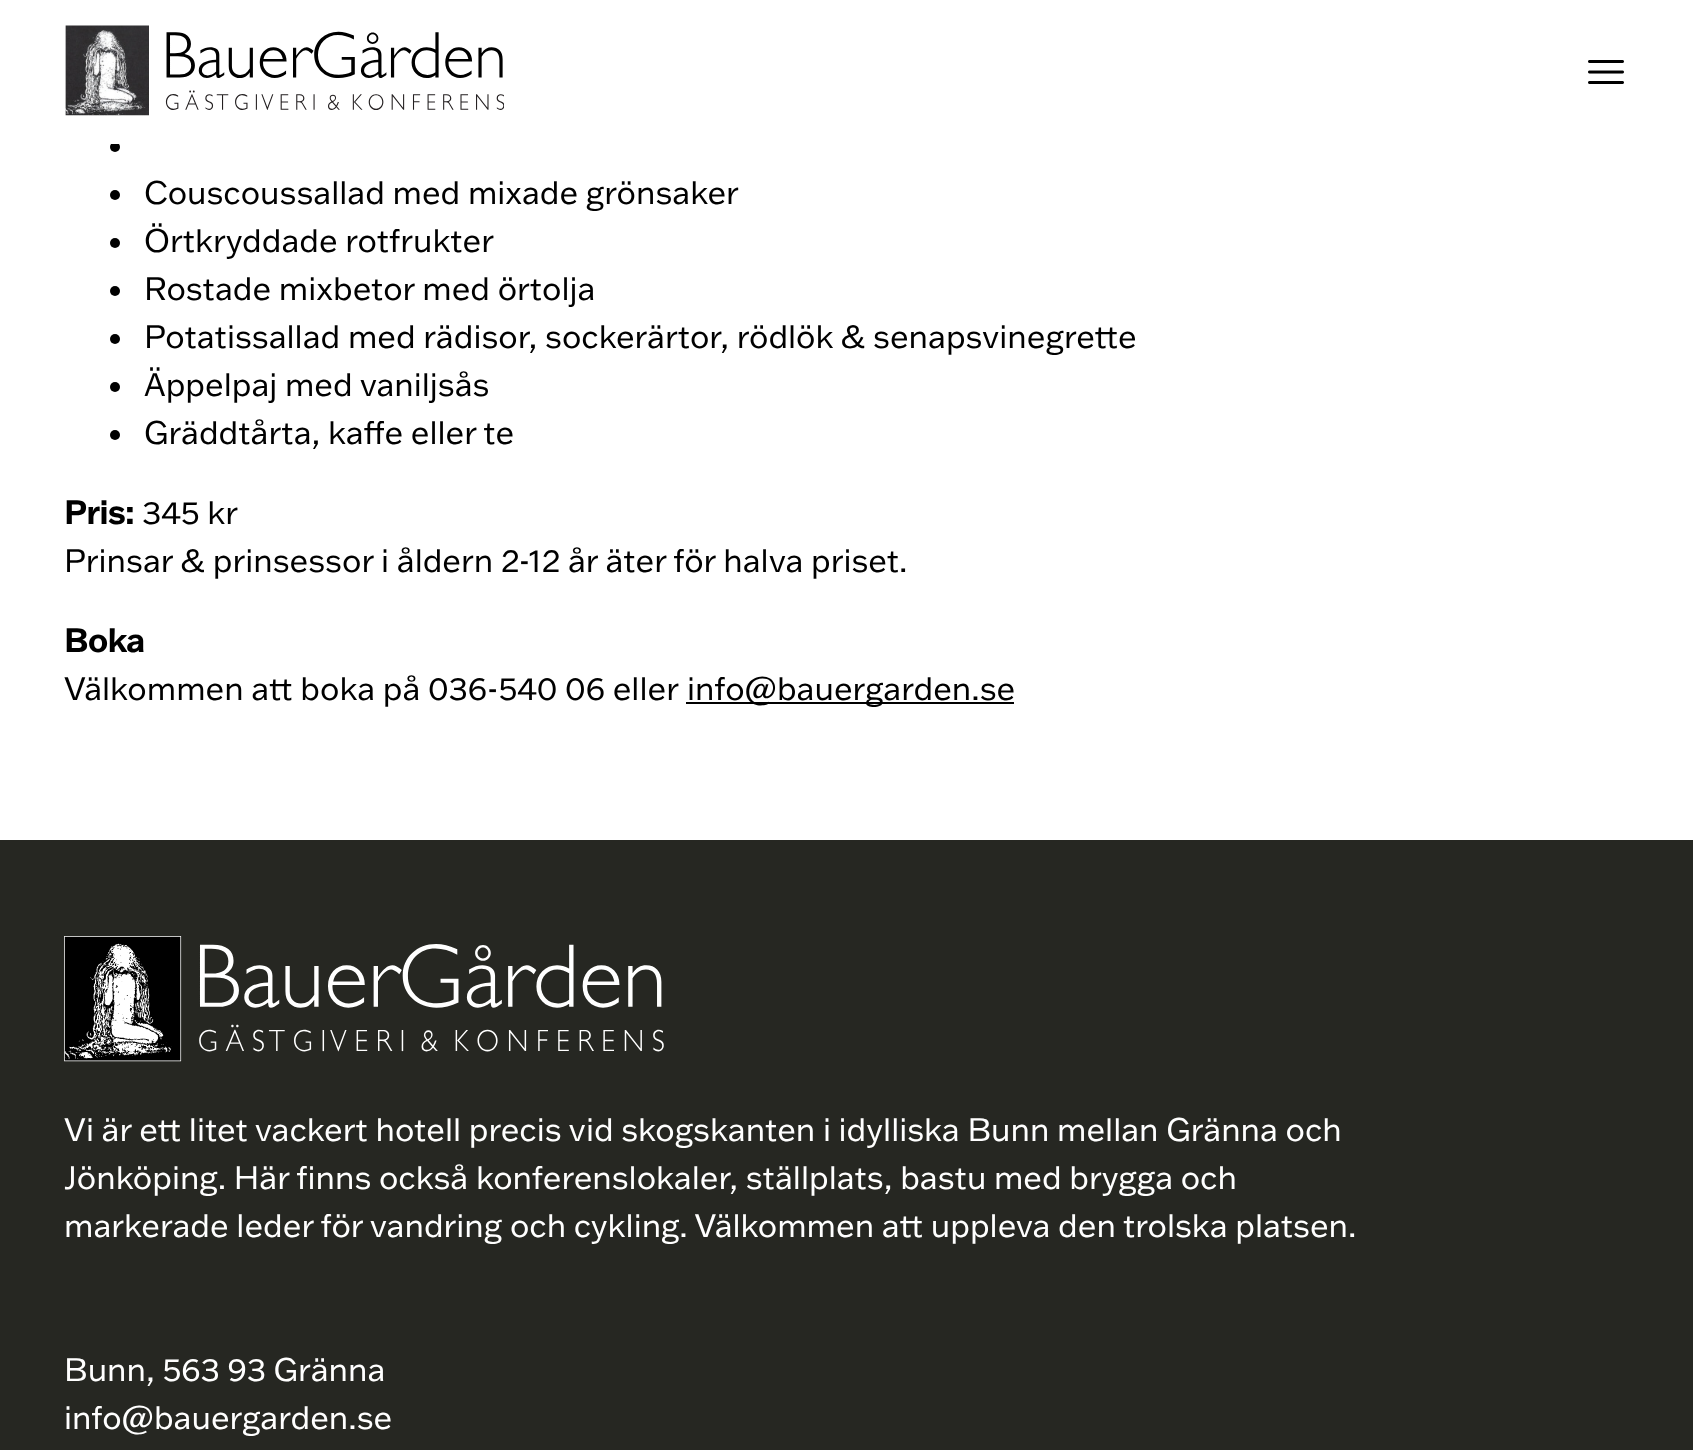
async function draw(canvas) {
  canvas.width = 1693
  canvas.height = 1450
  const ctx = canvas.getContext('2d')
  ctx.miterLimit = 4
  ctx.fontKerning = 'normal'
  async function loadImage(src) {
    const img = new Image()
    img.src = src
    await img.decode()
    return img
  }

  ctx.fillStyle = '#fff'
  ctx.fillRect(0, 0, 1693, 1450)
  ctx.fillStyle = '#000'
  ctx.beginPath()
  ctx.arc(115, 147, 5, 0, 2 * Math.PI)
  ctx.fill()
  ctx.fillStyle = '#fff'
  ctx.fillRect(111, 142, 8, 2)
  ctx.drawImage(await loadImage('image0.png'), 65, 25, 439, 91)
  ctx.drawImage(await loadImage('image1.png'), 1588, 60, 36, 24)
  ctx.fillStyle = '#000'
  ctx.beginPath()
  ctx.arc(115, 195, 5, 0, 2 * Math.PI)
  ctx.fill()
  ctx.font = '32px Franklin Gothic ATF'
  ctx.fillText('Couscoussallad med mixade grönsaker', 144, 204)
  ctx.beginPath()
  ctx.arc(115, 243, 5, 0, 2 * Math.PI)
  ctx.fill()
  ctx.fillText('Örtkryddade rotfrukter', 144, 252)
  ctx.beginPath()
  ctx.arc(115, 291, 5, 0, 2 * Math.PI)
  ctx.fill()
  ctx.fillText('Rostade mixbetor med örtolja', 144, 300)
  ctx.beginPath()
  ctx.arc(115, 339, 5, 0, 2 * Math.PI)
  ctx.fill()
  ctx.fillText('Potatissallad med rädisor, sockerärtor, rödlök & senapsvinegrette', 144, 348)
  ctx.beginPath()
  ctx.arc(115, 387, 5, 0, 2 * Math.PI)
  ctx.fill()
  ctx.fillText('Äppelpaj med vaniljsås', 144, 396)
  ctx.beginPath()
  ctx.arc(115, 435, 5, 0, 2 * Math.PI)
  ctx.fill()
  ctx.fillText('Gräddtårta, kaffe eller te', 144, 444)
  ctx.font = 'bold 32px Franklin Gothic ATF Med'
  ctx.fillText('Pris:', 64, 524)
  ctx.font = '32px Franklin Gothic ATF'
  ctx.fillText('345 kr', 142, 524)
  ctx.fillText('Prinsar & prinsessor i åldern 2-12 år äter för halva priset.', 64, 572)
  ctx.font = 'bold 32px Franklin Gothic ATF Med'
  ctx.fillText('Boka', 64, 652)
  ctx.font = '32px Franklin Gothic ATF'
  ctx.fillText('Välkommen att boka på 036-540 06 eller', 64, 700)
  ctx.fillRect(686, 702, 328, 2)
  ctx.fillText('info@bauergarden.se', 687, 700)
  ctx.fillStyle = '#262722'
  ctx.fillRect(0, 840, 1693, 610)
  ctx.drawImage(await loadImage('image2.png'), 64, 936, 600, 126)
  ctx.fillStyle = '#fff'
  ctx.fillText('Vi är ett litet vackert hotell precis vid skogskanten i idylliska Bunn mellan Gränna och', 64, 1141)
  ctx.fillText('Jönköping. Här finns också konferenslokaler, ställplats, bastu med brygga och', 64, 1189)
  ctx.fillText('markerade leder för vandring och cykling. Välkommen att uppleva den trolska platsen.', 64, 1237)
  ctx.fillText('Bunn, 563 93 Gränna', 64, 1381)
  ctx.fillText('info@bauergarden.se', 64, 1429)
}

draw(document.querySelector('canvas'))
